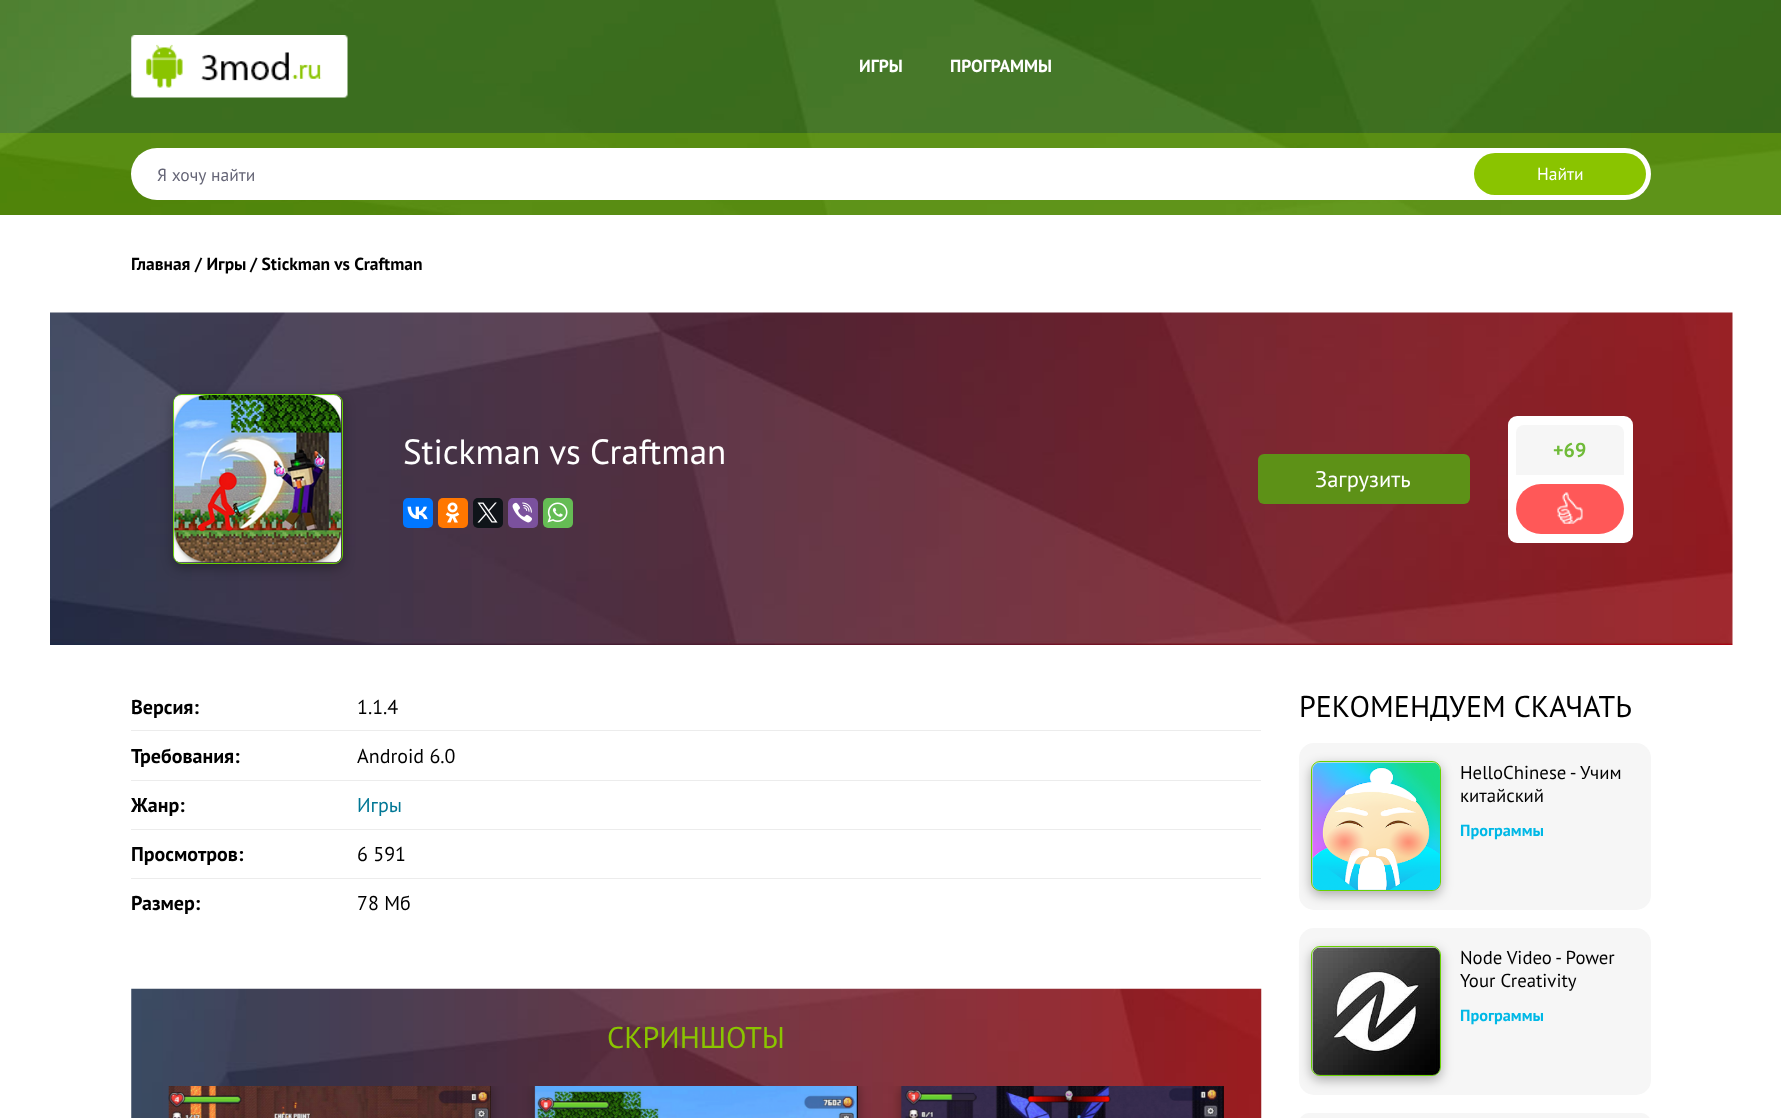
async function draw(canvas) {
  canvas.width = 1781
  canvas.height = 1118
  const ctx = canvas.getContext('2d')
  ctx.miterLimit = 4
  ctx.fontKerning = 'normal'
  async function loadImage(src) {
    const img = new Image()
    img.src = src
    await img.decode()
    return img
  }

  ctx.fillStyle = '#fff'
  ctx.fillRect(0, 0, 1781, 1118)
  ctx.drawImage(await loadImage('image0.png'), 0, 0, 1781, 215)
  ctx.drawImage(await loadImage('image1.png'), 131, 35, 217, 63)
  ctx.font = 'bold 17.5px PT Sans'
  ctx.fillText('ИГРЫ', 859, 72)
  ctx.fillText('ПРОГРАММЫ', 950, 72)
  ctx.fillStyle = '#8ac4005e'
  ctx.fillRect(0, 133, 1781, 82)
  ctx.fillStyle = '#fff'
  ctx.beginPath()
  ctx.roundRect(131, 148, 1520, 52, 26)
  ctx.fill()
  ctx.font = '17.5px PT Sans'
  ctx.fillStyle = '#667'
  ctx.fillText('Я хочу найти', 157, 181)
  ctx.fillStyle = '#8ac400'
  ctx.beginPath()
  ctx.roundRect(1474, 153, 172, 42, 21)
  ctx.fill()
  ctx.fillStyle = '#fff'
  ctx.fillText('Найти', 1537, 180)
  ctx.font = 'bold 17.5px PT Sans'
  ctx.fillStyle = '#000'
  ctx.fillText('Главная / Игры', 131, 270)
  ctx.fillText('/ Stickman vs Craftman', 250, 270)
  ctx.drawImage(await loadImage('image2.png'), 50, 312, 1683, 333)
  ctx.save()
  ctx.beginPath()
  ctx.moveTo(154, 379)
  ctx.lineTo(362, 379)
  ctx.lineTo(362, 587)
  ctx.lineTo(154, 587)
  ctx.closePath()
  ctx.moveTo(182, 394)
  ctx.lineTo(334, 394)
  ctx.bezierCurveTo(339, 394, 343, 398, 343, 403)
  ctx.lineTo(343, 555)
  ctx.bezierCurveTo(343, 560, 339, 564, 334, 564)
  ctx.lineTo(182, 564)
  ctx.bezierCurveTo(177, 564, 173, 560, 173, 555)
  ctx.lineTo(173, 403)
  ctx.bezierCurveTo(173, 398, 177, 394, 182, 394)
  ctx.closePath()
  ctx.clip('evenodd')
  ctx.fillStyle = '#0000004d'
  ctx.filter = 'blur(6px)'
  ctx.beginPath()
  ctx.roundRect(173, 398, 170, 170, 9)
  ctx.fill()
  ctx.filter = 'none'
  ctx.restore()
  ctx.beginPath()
  ctx.roundRect(173.5, 394.5, 169, 169, 8.5)
  ctx.strokeStyle = '#68d200'
  ctx.stroke()
  ctx.drawImage(await loadImage('image3.png'), 173, 395, 169, 168)
  ctx.font = '35px PT Sans'
  ctx.fillStyle = '#fff'
  ctx.fillText('Stickman vs Craftman', 403, 464)
  ctx.fillStyle = '#07f'
  ctx.beginPath()
  ctx.roundRect(403, 498, 30, 30, 5)
  ctx.fill()
  ctx.drawImage(await loadImage('image4.png'), 407, 506, 21, 14)
  ctx.fillStyle = '#f70'
  ctx.beginPath()
  ctx.roundRect(438, 498, 30, 30, 5)
  ctx.fill()
  ctx.drawImage(await loadImage('image5.png'), 445, 502, 15, 21)
  ctx.fillStyle = '#0f1419'
  ctx.beginPath()
  ctx.roundRect(473, 498, 30, 30, 5)
  ctx.fill()
  ctx.drawImage(await loadImage('image6.png'), 477, 502, 21, 21)
  ctx.fillStyle = '#7b519d'
  ctx.beginPath()
  ctx.roundRect(508, 498, 30, 30, 5)
  ctx.fill()
  ctx.drawImage(await loadImage('image7.png'), 512, 502, 20, 21)
  ctx.fillStyle = '#65bc54'
  ctx.beginPath()
  ctx.roundRect(543, 498, 30, 30, 5)
  ctx.fill()
  ctx.drawImage(await loadImage('image8.png'), 547, 502, 21, 21)
  ctx.fillStyle = '#fff'
  ctx.beginPath()
  ctx.roundRect(1508, 416, 125, 127, 9)
  ctx.fill()
  ctx.fillStyle = '#f6f6f6'
  ctx.beginPath()
  ctx.roundRect(1516, 425, 108, 50, [8, 8, 0, 0])
  ctx.fill()
  ctx.font = 'bold 20px PT Sans'
  ctx.fillStyle = '#70bb39'
  ctx.fillText('+69', 1553, 457)
  ctx.fillStyle = '#ff5858'
  ctx.beginPath()
  ctx.roundRect(1516, 484, 108, 50, 25)
  ctx.fill()
  ctx.drawImage(await loadImage('image9.png'), 1557, 492, 26, 32)
  ctx.fillStyle = '#5d9117'
  ctx.beginPath()
  ctx.roundRect(1258, 454, 212, 50, 6)
  ctx.fill()
  ctx.font = '22.5px PT Sans'
  ctx.fillStyle = '#fff'
  ctx.fillText('Загрузить', 1315, 487)
  ctx.fillStyle = '#ececec'
  ctx.fillRect(131, 730, 1130, 1)
  ctx.font = 'bold 20px PT Sans'
  ctx.fillStyle = '#000'
  ctx.fillText('Версия:', 131, 714)
  ctx.font = '20px PT Sans'
  ctx.fillText('1.1.4', 357, 714)
  ctx.fillStyle = '#ececec'
  ctx.fillRect(131, 780, 1130, 1)
  ctx.font = 'bold 20px PT Sans'
  ctx.fillStyle = '#000'
  ctx.fillText('Требования:', 131, 763)
  ctx.font = '20px PT Sans'
  ctx.fillText('Android 6.0', 357, 763)
  ctx.fillStyle = '#ececec'
  ctx.fillRect(131, 829, 1130, 1)
  ctx.font = 'bold 20px PT Sans'
  ctx.fillStyle = '#000'
  ctx.fillText('Жанр:', 131, 812)
  ctx.font = '20px PT Sans'
  ctx.fillStyle = '#007795'
  ctx.fillText('Игры', 357, 812)
  ctx.fillStyle = '#ececec'
  ctx.fillRect(131, 878, 1130, 1)
  ctx.font = 'bold 20px PT Sans'
  ctx.fillStyle = '#000'
  ctx.fillText('Просмотров:', 131, 861)
  ctx.font = '20px PT Sans'
  ctx.fillText('6 591', 357, 861)
  ctx.font = 'bold 20px PT Sans'
  ctx.fillText('Размер:', 131, 910)
  ctx.font = '20px PT Sans'
  ctx.fillText('78 Мб', 357, 910)
  ctx.drawImage(await loadImage('image10.png'), 131, 988, 1131, 130)
  ctx.font = '30px PT Sans'
  ctx.fillStyle = '#8ac400'
  ctx.fillText('СКРИНШОТЫ', 607, 1048)
  ctx.save()
  ctx.beginPath()
  ctx.rect(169, 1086, 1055, 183)
  ctx.clip()
  ctx.fillStyle = '#00000052'
  ctx.filter = 'blur(6px)'
  ctx.beginPath()
  ctx.rect(169, 1086, 322, 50)
  ctx.fill()
  ctx.filter = 'none'
  ctx.restore()
  ctx.drawImage(await loadImage('image11.png'), 168, 1086, 323, 32)
  ctx.save()
  ctx.beginPath()
  ctx.rect(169, 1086, 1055, 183)
  ctx.clip()
  ctx.fillStyle = '#00000052'
  ctx.filter = 'blur(6px)'
  ctx.beginPath()
  ctx.rect(535, 1086, 323, 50)
  ctx.fill()
  ctx.filter = 'none'
  ctx.restore()
  ctx.drawImage(await loadImage('image12.png'), 534, 1086, 324, 32)
  ctx.save()
  ctx.beginPath()
  ctx.rect(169, 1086, 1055, 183)
  ctx.clip()
  ctx.fillStyle = '#00000052'
  ctx.filter = 'blur(6px)'
  ctx.beginPath()
  ctx.rect(901, 1086, 323, 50)
  ctx.fill()
  ctx.filter = 'none'
  ctx.restore()
  ctx.drawImage(await loadImage('image13.png'), 901, 1086, 323, 32)
  ctx.fillStyle = '#000'
  ctx.fillText('РЕКОМЕНДУЕМ СКАЧАТЬ', 1299, 717)
  ctx.fillStyle = '#f6f6f6'
  ctx.beginPath()
  ctx.roundRect(1299, 743, 352, 167, 15)
  ctx.fill()
  ctx.fillStyle = '#0000004d'
  ctx.filter = 'blur(6px)'
  ctx.beginPath()
  ctx.roundRect(1311, 765, 130, 130, 9)
  ctx.fill()
  ctx.filter = 'none'
  ctx.beginPath()
  ctx.roundRect(1311.5, 761.5, 129, 129, 8.5)
  ctx.stroke()
  ctx.drawImage(await loadImage('image14.png'), 1312, 762, 128, 128)
  ctx.font = '18.75px PT Sans'
  ctx.fillStyle = '#000'
  ctx.fillText('HelloChinese - Учим', 1460, 779)
  ctx.fillText('китайский', 1460, 802)
  ctx.font = 'bold 16.25px PT Sans'
  ctx.fillStyle = '#00b8e6'
  ctx.fillText('Программы', 1460, 836)
  ctx.fillStyle = '#f6f6f6'
  ctx.beginPath()
  ctx.roundRect(1299, 928, 352, 167, 15)
  ctx.fill()
  ctx.fillStyle = '#0000004d'
  ctx.filter = 'blur(6px)'
  ctx.beginPath()
  ctx.roundRect(1311, 950, 130, 130, 9)
  ctx.fill()
  ctx.filter = 'none'
  ctx.beginPath()
  ctx.roundRect(1311.5, 946.5, 129, 129, 8.5)
  ctx.stroke()
  ctx.drawImage(await loadImage('image15.png'), 1312, 947, 128, 128)
  ctx.font = '18.75px PT Sans'
  ctx.fillStyle = '#000'
  ctx.fillText('Node Video - Power', 1460, 964)
  ctx.fillText('Your Creativity', 1460, 987)
  ctx.font = 'bold 16.25px PT Sans'
  ctx.fillStyle = '#00b8e6'
  ctx.fillText('Программы', 1460, 1021)
  ctx.fillStyle = '#f6f6f6'
  ctx.beginPath()
  ctx.roundRect(1299, 1113, 352, 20, 15)
  ctx.fill()
}

draw(document.querySelector('canvas'))
